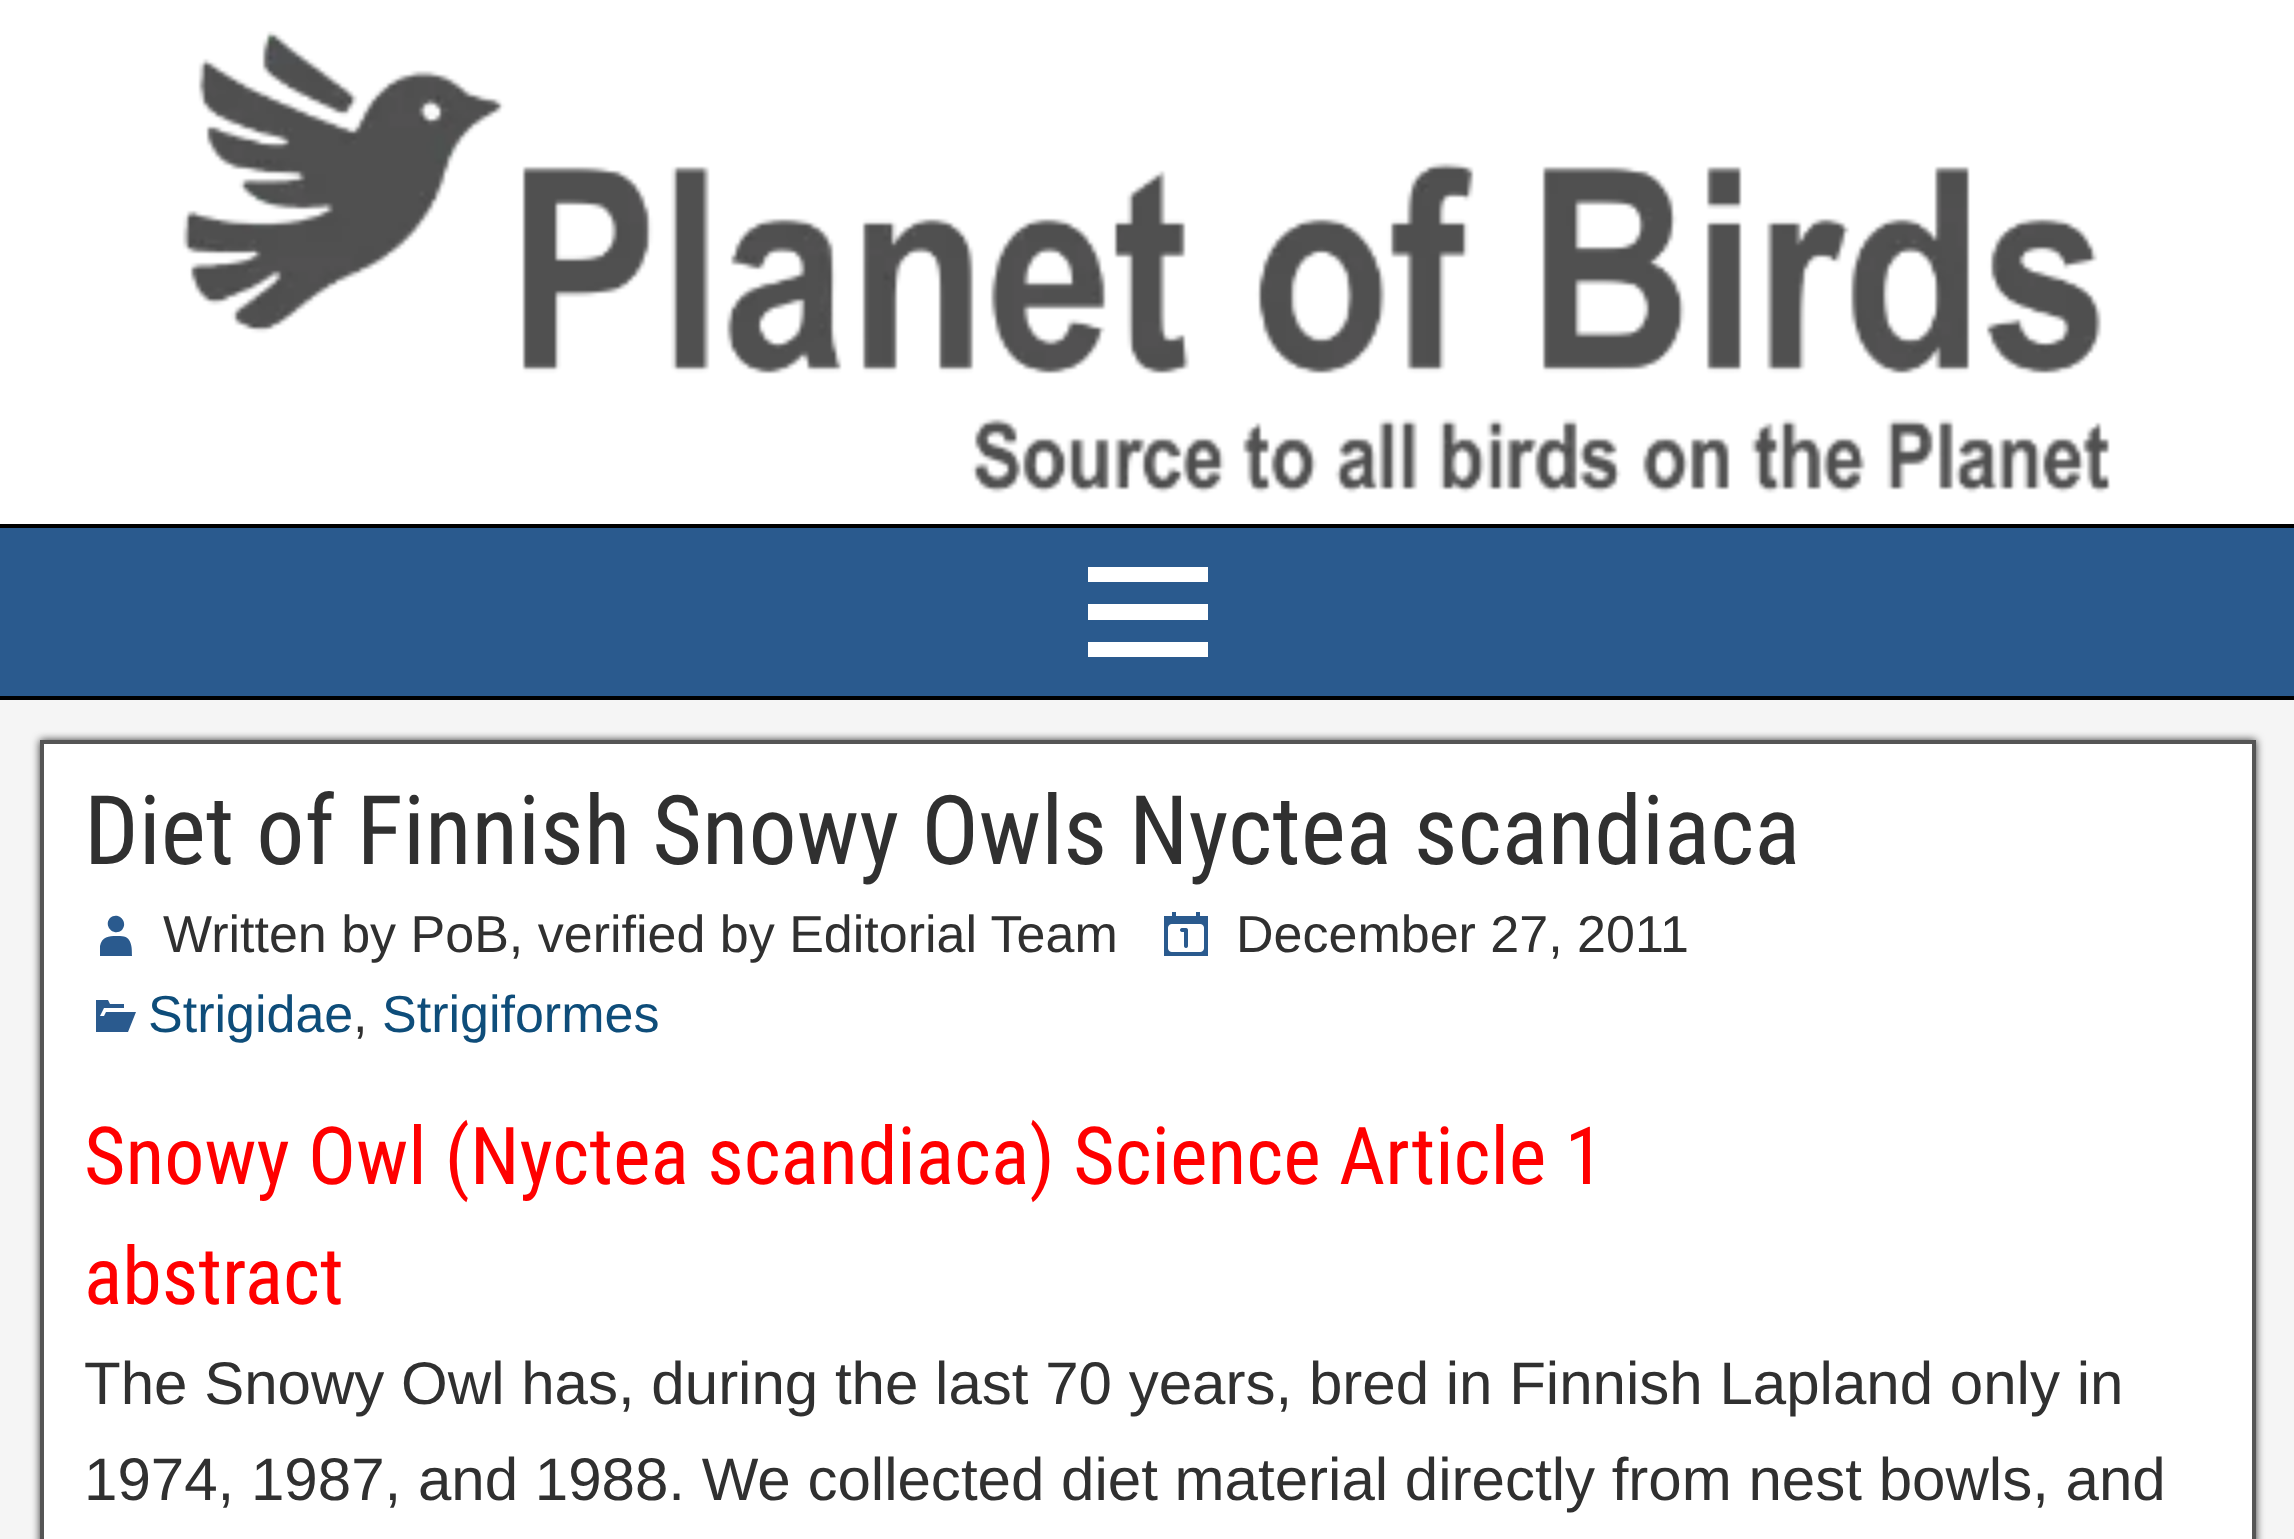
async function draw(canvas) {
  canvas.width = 2294
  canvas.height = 1539
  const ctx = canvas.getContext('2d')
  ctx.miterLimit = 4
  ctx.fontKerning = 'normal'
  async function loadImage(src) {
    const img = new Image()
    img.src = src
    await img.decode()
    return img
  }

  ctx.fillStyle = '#fff'
  ctx.fillRect(0, 0, 2294, 1539)
  ctx.fillStyle = '#000'
  ctx.fillRect(0, 524, 2294, 4)
  ctx.drawImage(await loadImage('image0.png'), 182, 31, 1929, 463)
  ctx.fillStyle = '#2a5a8e'
  ctx.fillRect(0, 528, 2294, 168)
  ctx.fillStyle = '#000'
  ctx.fillRect(0, 696, 2294, 4)
  ctx.fillStyle = '#fff'
  ctx.beginPath()
  ctx.moveTo(1088, 657)
  ctx.lineTo(1088, 642)
  ctx.lineTo(1208, 642)
  ctx.lineTo(1208, 657)
  ctx.closePath()
  ctx.moveTo(1088, 567)
  ctx.lineTo(1208, 567)
  ctx.lineTo(1208, 582)
  ctx.lineTo(1088, 582)
  ctx.closePath()
  ctx.moveTo(1088, 620)
  ctx.lineTo(1088, 604)
  ctx.lineTo(1208, 604)
  ctx.lineTo(1208, 620)
  ctx.closePath()
  ctx.fill()
  ctx.fillStyle = '#f5f5f5'
  ctx.fillRect(0, 700, 2294, 839)
  ctx.fillStyle = '#333'
  ctx.filter = 'blur(4px)'
  ctx.beginPath()
  ctx.rect(40, 740, 2216, 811)
  ctx.fill()
  ctx.filter = 'none'
  ctx.fillStyle = '#fff'
  ctx.beginPath()
  ctx.rect(42, 742, 2212, 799)
  ctx.fill()
  ctx.strokeStyle = '#555'
  ctx.lineWidth = 4
  ctx.stroke()
  ctx.font = '96px Roboto Condensed'
  ctx.fillStyle = '#303030'
  ctx.fillText('Diet of Finnish Snowy Owls Nyctea scandiaca', 84, 864)
  ctx.fillStyle = '#2a5a8e'
  ctx.beginPath()
  ctx.moveTo(122, 930)
  ctx.bezierCurveTo(114, 937, 103, 926, 110, 918)
  ctx.bezierCurveTo(118, 911, 129, 922, 122, 930)
  ctx.closePath()
  ctx.moveTo(120, 936)
  ctx.bezierCurveTo(132, 936, 132, 947, 132, 956)
  ctx.lineTo(100, 956)
  ctx.lineTo(100, 946)
  ctx.bezierCurveTo(102, 935, 112, 936, 120, 936)
  ctx.closePath()
  ctx.fill()
  ctx.font = '52px Liberation Sans'
  ctx.fillStyle = '#303030'
  ctx.fillText('Written by PoB, verified by Editorial Team', 163, 952)
  ctx.drawImage(await loadImage('image1.png'), 1164, 912, 44, 44)
  ctx.fillText('December 27, 2011', 1236, 952)
  ctx.fillStyle = '#2a5a8e'
  ctx.beginPath()
  ctx.moveTo(106, 1012)
  ctx.lineTo(136, 1012)
  ctx.lineTo(128, 1032)
  ctx.lineTo(96, 1032)
  ctx.lineTo(96, 1000)
  ctx.lineTo(108, 1000)
  ctx.lineTo(110, 1004)
  ctx.lineTo(124, 1004)
  ctx.lineTo(124, 1008)
  ctx.lineTo(104, 1008)
  ctx.lineTo(100, 1016)
  ctx.lineTo(104, 1016)
  ctx.closePath()
  ctx.fill()
  ctx.fillStyle = '#0e4d7a'
  ctx.fillText('Strigidae', 148, 1032)
  ctx.fillStyle = '#303030'
  ctx.fillText(',', 353, 1032)
  ctx.fillStyle = '#0e4d7a'
  ctx.fillText('Strigiformes', 382, 1032)
  ctx.font = '80px Roboto Condensed'
  ctx.fillStyle = '#f00'
  ctx.fillText('Snowy Owl (Nyctea scandiaca) Science Article 1', 84, 1184)
  ctx.fillText('abstract', 84, 1304)
  ctx.font = '60.05px Arimo'
  ctx.fillStyle = '#303030'
  ctx.fillText('The Snowy Owl has, during the last 70 years, bred in Finnish Lapland only in', 84, 1404)
  ctx.fillText('1974, 1987, and 1988. We collected diet material directly from nest bowls, and', 84, 1500)
}

draw(document.querySelector('canvas'))
